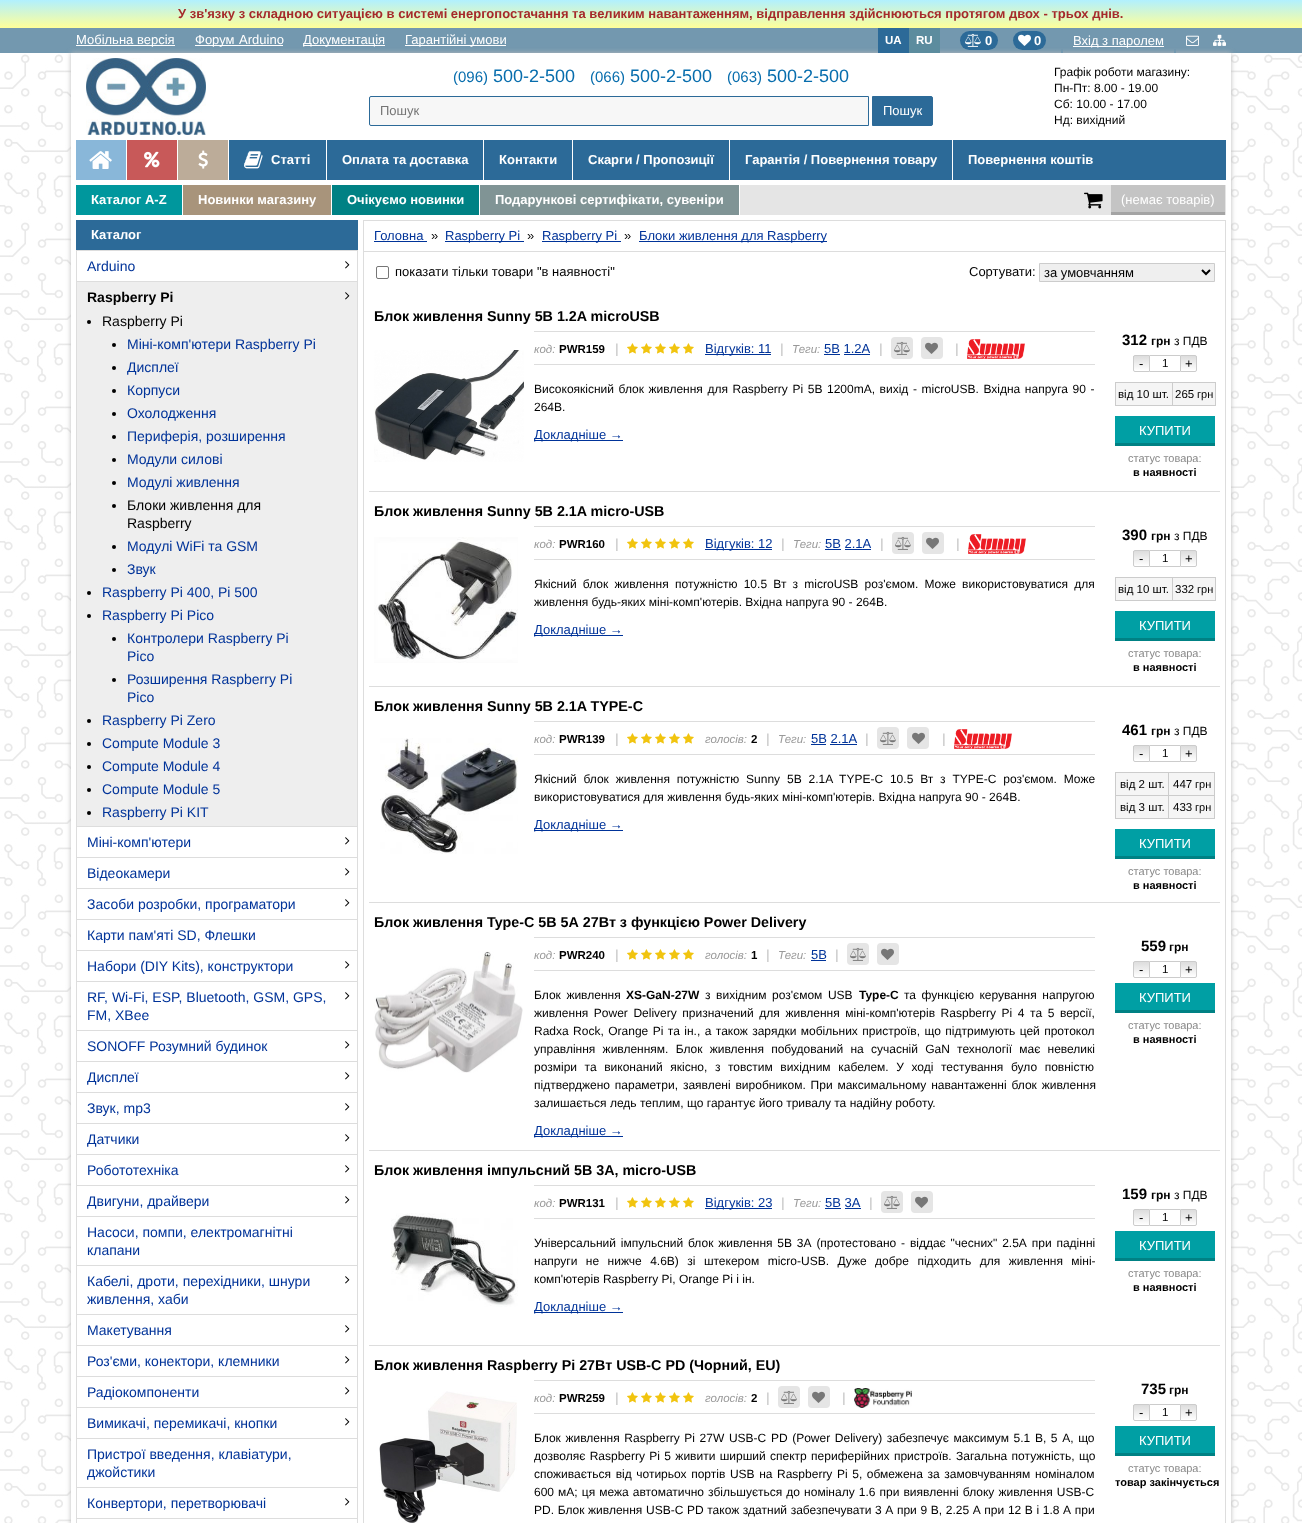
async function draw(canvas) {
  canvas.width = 1302
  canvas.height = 1523
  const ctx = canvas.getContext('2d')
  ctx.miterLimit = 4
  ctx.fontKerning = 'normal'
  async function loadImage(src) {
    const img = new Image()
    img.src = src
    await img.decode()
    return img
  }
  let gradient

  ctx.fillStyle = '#fff'
  ctx.fillRect(0, 0, 1302, 1523)
  ctx.drawImage(await loadImage('image0.png'), 0, 53, 1302, 1470)
  gradient = ctx.createLinearGradient(651, 0, 651, 28)
  gradient.addColorStop(0, '#b1f0fe')
  gradient.addColorStop(1, '#ff9')
  ctx.fillStyle = gradient
  ctx.fillRect(0, 0, 1302, 28)
  ctx.font = 'bold 13px Liberation Sans'
  ctx.fillStyle = '#a52a2a'
  ctx.fillText('У зв\'язку з складною ситуацією в системі енергопостачання та великим навантаженням, відправлення здійснюються протягом двох - трьох днів.', 178, 18)
  ctx.fillStyle = '#7398af'
  ctx.fillRect(0, 28, 1302, 25)
  ctx.fillStyle = '#bbb'
  ctx.filter = 'blur(2.5px)'
  ctx.beginPath()
  ctx.rect(71, 53, 1160, 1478)
  ctx.fill()
  ctx.filter = 'none'
  ctx.fillStyle = '#fff'
  ctx.fillRect(76, 45, 99, 1)
  ctx.font = '13px Liberation Sans'
  ctx.fillText('Мобільна версія', 76, 44)
  ctx.fillRect(195, 45, 88, 1)
  ctx.wordSpacing = '1px'
  ctx.fillText('Форум Arduino', 195, 44)
  ctx.fillRect(303, 45, 82, 1)
  ctx.wordSpacing = '0px'
  ctx.fillText('Документація', 303, 44)
  ctx.fillRect(405, 45, 101, 1)
  ctx.fillText('Гарантійні умови', 405, 44)
  ctx.fillStyle = '#2c6a98'
  ctx.fillRect(878, 28, 31, 25)
  ctx.font = 'bold 11.5px Liberation Sans'
  ctx.fillStyle = '#fff'
  ctx.fillText('UA', 885, 44)
  ctx.fillStyle = '#5c8c9e'
  ctx.fillRect(909, 28, 31, 25)
  ctx.fillStyle = '#fff'
  ctx.fillText('RU', 916, 44)
  ctx.fillStyle = '#2c6a98'
  ctx.beginPath()
  ctx.roundRect(960, 31, 38, 19, 9.5)
  ctx.fill()
  ctx.drawImage(await loadImage('image1.png'), 965, 33, 16, 14)
  ctx.font = 'bold 13px Liberation Sans'
  ctx.fillStyle = '#fff'
  ctx.fillText('0', 985, 45)
  ctx.fillStyle = '#2c6a98'
  ctx.beginPath()
  ctx.roundRect(1013, 31, 33, 19, 9.5)
  ctx.fill()
  ctx.drawImage(await loadImage('image2.png'), 1018, 34, 13, 12)
  ctx.fillStyle = '#fff'
  ctx.fillText('0', 1034, 45)
  ctx.fillStyle = '#7398af'
  ctx.fillRect(1174, 49, 2, 4)
  ctx.fillRect(1061, 49, 2, 4)
  ctx.fillStyle = '#fff'
  ctx.fillRect(1073, 46, 91, 1)
  ctx.font = '13px Liberation Sans'
  ctx.fillText('Вхід з паролем', 1073, 45)
  ctx.drawImage(await loadImage('image3.png'), 1186, 35, 13, 11)
  ctx.drawImage(await loadImage('image4.png'), 1213, 34, 13, 12)
  ctx.fillRect(71, 53, 1160, 1470)
  ctx.drawImage(await loadImage('image5.png'), 86, 58, 120, 77)
  ctx.font = '15px Liberation Sans'
  ctx.fillStyle = '#076dad'
  ctx.fillText('(096)', 453, 82)
  ctx.font = '18px Liberation Sans'
  ctx.fillText('500-2-500', 493, 82)
  ctx.font = '15px Liberation Sans'
  ctx.fillText('(066)', 590, 82)
  ctx.font = '18px Liberation Sans'
  ctx.fillText('500-2-500', 630, 82)
  ctx.font = '15px Liberation Sans'
  ctx.fillText('(063)', 727, 82)
  ctx.font = '18px Liberation Sans'
  ctx.fillText('500-2-500', 767, 82)
  ctx.fillStyle = '#f7f7f7'
  ctx.beginPath()
  ctx.roundRect(369.5, 96.5, 499, 29, [1.5, 0, 0, 1.5])
  ctx.fill()
  ctx.strokeStyle = '#2c6a98'
  ctx.stroke()
  ctx.font = '13px Liberation Sans'
  ctx.fillStyle = '#757575'
  ctx.fillText('Пошук', 380, 115)
  ctx.fillStyle = '#2c6a98'
  ctx.beginPath()
  ctx.roundRect(872.5, 96.5, 60, 29, [0, 1.5, 1.5, 0])
  ctx.fill()
  ctx.stroke()
  ctx.fillStyle = '#fff'
  ctx.fillText('Пошук', 883, 115)
  ctx.font = '12px Liberation Sans'
  ctx.fillStyle = '#000'
  ctx.fillText('Графік роботи магазину:', 1054, 76)
  ctx.fillText('Пн-Пт: 8.00 - 19.00', 1054, 92)
  ctx.fillText('Сб: 10.00 - 17.00', 1054, 108)
  ctx.fillText('Нд: вихідний', 1054, 124)
  ctx.fillStyle = '#2c6a98'
  ctx.fillRect(229, 140, 997, 40)
  ctx.fillStyle = '#89b7d9'
  ctx.fillRect(76, 140, 50, 40)
  ctx.drawImage(await loadImage('image6.png'), 89, 151, 23, 18)
  ctx.fillStyle = '#c85959'
  ctx.fillRect(127, 140, 50, 40)
  ctx.drawImage(await loadImage('image7.png'), 144, 151, 16, 17)
  ctx.fillStyle = '#bcac99'
  ctx.fillRect(178, 140, 50, 40)
  ctx.drawImage(await loadImage('image8.png'), 198, 150, 10, 19)
  ctx.drawImage(await loadImage('image9.png'), 244, 151, 19, 18)
  ctx.font = 'bold 13px Liberation Sans'
  ctx.fillStyle = '#fff'
  ctx.fillText('Статті', 271, 164)
  ctx.fillRect(326, 140, 1, 40)
  ctx.fillText('Оплата та доставка', 342, 164)
  ctx.fillRect(483, 140, 1, 40)
  ctx.fillText('Контакти', 499, 164)
  ctx.fillRect(572, 140, 1, 40)
  ctx.fillText('Скарги / Пропозиції', 588, 164)
  ctx.fillRect(729, 140, 1, 40)
  ctx.fillText('Гарантія / Повернення товару', 745, 164)
  ctx.fillRect(952, 140, 1, 40)
  ctx.fillText('Повернення коштів', 968, 164)
  ctx.fillStyle = '#e5e5e5'
  ctx.fillRect(740, 185, 486, 30)
  ctx.fillStyle = '#00979d'
  ctx.fillRect(76, 185, 106, 30)
  ctx.fillStyle = '#fff'
  ctx.fillText('Каталог A-Z', 91, 204)
  ctx.fillStyle = '#a8947b'
  ctx.fillRect(183, 185, 148, 30)
  ctx.fillStyle = '#fff'
  ctx.fillText('Новинки магазину', 198, 204)
  ctx.fillStyle = '#008184'
  ctx.fillRect(332, 185, 147, 30)
  ctx.fillStyle = '#fff'
  ctx.fillText('Очікуємо новинки', 347, 204)
  ctx.fillStyle = '#809495'
  ctx.fillRect(480, 185, 259, 30)
  ctx.fillStyle = '#fff'
  ctx.fillText('Подарункові сертифікати, сувеніри', 495, 204)
  ctx.drawImage(await loadImage('image10.png'), 1084, 192, 19, 17)
  ctx.fillStyle = '#c4c4c4'
  ctx.fillRect(1111, 185, 114, 27)
  ctx.fillStyle = '#a4a4a4'
  ctx.fillRect(1111, 212, 114, 3)
  ctx.font = '13px Liberation Sans'
  ctx.fillStyle = '#fff'
  ctx.fillText('(немає товарів)', 1121, 204)
  ctx.fillStyle = '#2c6a98'
  ctx.fillRect(76, 220, 282, 30)
  ctx.font = 'bold 13px Liberation Sans'
  ctx.fillStyle = '#fff'
  ctx.fillText('Каталог', 91, 239)
  ctx.fillStyle = '#ddd'
  ctx.fillRect(76, 250, 282, 1)
  ctx.fillRect(357, 250, 1, 1273)
  ctx.fillRect(76, 250, 1, 1273)
  ctx.fillRect(77, 281, 280, 1)
  ctx.font = '14px Liberation Sans'
  ctx.fillStyle = '#039'
  ctx.fillText('Arduino', 87, 271)
  ctx.drawImage(await loadImage('image11.png'), 345, 261, 5, 8)
  ctx.fillStyle = '#eee'
  ctx.fillRect(77, 282, 280, 544)
  ctx.fillStyle = '#ddd'
  ctx.fillRect(77, 826, 280, 1)
  ctx.font = 'bold 14px Liberation Sans'
  ctx.fillStyle = '#000'
  ctx.fillText('Raspberry Pi', 87, 302)
  ctx.drawImage(await loadImage('image12.png'), 345, 292, 5, 8)
  ctx.beginPath()
  ctx.arc(89, 322, 2, 0, 2 * Math.PI)
  ctx.fill()
  ctx.font = '14px Liberation Sans'
  ctx.fillText('Raspberry Pi', 102, 326)
  ctx.beginPath()
  ctx.arc(114, 345, 2, 0, 2 * Math.PI)
  ctx.fill()
  ctx.fillStyle = '#039'
  ctx.fillText('Міні-комп\'ютери Raspberry Pi', 127, 349)
  ctx.fillStyle = '#000'
  ctx.beginPath()
  ctx.arc(114, 368, 2, 0, 2 * Math.PI)
  ctx.fill()
  ctx.fillStyle = '#039'
  ctx.fillText('Дисплеї', 127, 372)
  ctx.fillStyle = '#000'
  ctx.beginPath()
  ctx.arc(114, 391, 2, 0, 2 * Math.PI)
  ctx.fill()
  ctx.fillStyle = '#039'
  ctx.fillText('Корпуси', 127, 395)
  ctx.fillStyle = '#000'
  ctx.beginPath()
  ctx.arc(114, 414, 2, 0, 2 * Math.PI)
  ctx.fill()
  ctx.fillStyle = '#039'
  ctx.fillText('Охолодження', 127, 418)
  ctx.fillStyle = '#000'
  ctx.beginPath()
  ctx.arc(114, 437, 2, 0, 2 * Math.PI)
  ctx.fill()
  ctx.fillStyle = '#039'
  ctx.fillText('Периферія, розширення', 127, 441)
  ctx.fillStyle = '#000'
  ctx.beginPath()
  ctx.arc(114, 460, 2, 0, 2 * Math.PI)
  ctx.fill()
  ctx.fillStyle = '#039'
  ctx.fillText('Модули силові', 127, 464)
  ctx.fillStyle = '#000'
  ctx.beginPath()
  ctx.arc(114, 483, 2, 0, 2 * Math.PI)
  ctx.fill()
  ctx.fillStyle = '#039'
  ctx.fillText('Модулі живлення', 127, 487)
  ctx.fillStyle = '#000'
  ctx.beginPath()
  ctx.arc(114, 506, 2, 0, 2 * Math.PI)
  ctx.fill()
  ctx.fillText('Блоки живлення для', 127, 510)
  ctx.fillText('Raspberry', 127, 528)
  ctx.beginPath()
  ctx.arc(114, 547, 2, 0, 2 * Math.PI)
  ctx.fill()
  ctx.fillStyle = '#039'
  ctx.fillText('Модулі WiFi та GSM', 127, 551)
  ctx.fillStyle = '#000'
  ctx.beginPath()
  ctx.arc(114, 570, 2, 0, 2 * Math.PI)
  ctx.fill()
  ctx.fillStyle = '#039'
  ctx.fillText('Звук', 127, 574)
  ctx.fillStyle = '#000'
  ctx.beginPath()
  ctx.arc(89, 593, 2, 0, 2 * Math.PI)
  ctx.fill()
  ctx.fillStyle = '#039'
  ctx.fillText('Raspberry Pi 400, Pi 500', 102, 597)
  ctx.fillStyle = '#000'
  ctx.beginPath()
  ctx.arc(89, 616, 2, 0, 2 * Math.PI)
  ctx.fill()
  ctx.fillStyle = '#039'
  ctx.fillText('Raspberry Pi Pico', 102, 620)
  ctx.fillStyle = '#000'
  ctx.beginPath()
  ctx.arc(114, 639, 2, 0, 2 * Math.PI)
  ctx.fill()
  ctx.fillStyle = '#039'
  ctx.fillText('Контролери Raspberry Pi', 127, 643)
  ctx.fillText('Pico', 127, 661)
  ctx.fillStyle = '#000'
  ctx.beginPath()
  ctx.arc(114, 680, 2, 0, 2 * Math.PI)
  ctx.fill()
  ctx.fillStyle = '#039'
  ctx.fillText('Розширення Raspberry Pi', 127, 684)
  ctx.fillText('Pico', 127, 702)
  ctx.fillStyle = '#000'
  ctx.beginPath()
  ctx.arc(89, 721, 2, 0, 2 * Math.PI)
  ctx.fill()
  ctx.fillStyle = '#039'
  ctx.fillText('Raspberry Pi Zero', 102, 725)
  ctx.fillStyle = '#000'
  ctx.beginPath()
  ctx.arc(89, 744, 2, 0, 2 * Math.PI)
  ctx.fill()
  ctx.fillStyle = '#039'
  ctx.fillText('Compute Module 3', 102, 748)
  ctx.fillStyle = '#000'
  ctx.beginPath()
  ctx.arc(89, 767, 2, 0, 2 * Math.PI)
  ctx.fill()
  ctx.fillStyle = '#039'
  ctx.fillText('Compute Module 4', 102, 771)
  ctx.fillStyle = '#000'
  ctx.beginPath()
  ctx.arc(89, 790, 2, 0, 2 * Math.PI)
  ctx.fill()
  ctx.fillStyle = '#039'
  ctx.fillText('Compute Module 5', 102, 794)
  ctx.fillStyle = '#000'
  ctx.beginPath()
  ctx.arc(89, 813, 2, 0, 2 * Math.PI)
  ctx.fill()
  ctx.fillStyle = '#039'
  ctx.fillText('Raspberry Pi KIT', 102, 817)
  ctx.fillStyle = '#ddd'
  ctx.fillRect(77, 857, 280, 1)
  ctx.fillStyle = '#039'
  ctx.fillText('Міні-комп\'ютери', 87, 847)
  ctx.drawImage(await loadImage('image11.png'), 345, 837, 5, 8)
  ctx.fillStyle = '#ddd'
  ctx.fillRect(77, 888, 280, 1)
  ctx.fillStyle = '#039'
  ctx.fillText('Відеокамери', 87, 878)
  ctx.drawImage(await loadImage('image11.png'), 345, 868, 5, 8)
  ctx.fillStyle = '#ddd'
  ctx.fillRect(77, 919, 280, 1)
  ctx.fillStyle = '#039'
  ctx.fillText('Засоби розробки, програматори', 87, 909)
  ctx.drawImage(await loadImage('image11.png'), 345, 899, 5, 8)
  ctx.fillStyle = '#ddd'
  ctx.fillRect(77, 950, 280, 1)
  ctx.fillStyle = '#039'
  ctx.fillText('Карти пам\'яті SD, Флешки', 87, 940)
  ctx.fillStyle = '#ddd'
  ctx.fillRect(77, 981, 280, 1)
  ctx.fillStyle = '#039'
  ctx.fillText('Набори (DIY Kits), конструктори', 87, 971)
  ctx.drawImage(await loadImage('image11.png'), 345, 961, 5, 8)
  ctx.fillStyle = '#ddd'
  ctx.fillRect(77, 1030, 280, 1)
  ctx.fillStyle = '#039'
  ctx.fillText('RF, Wi-Fi, ESP, Bluetooth, GSM, GPS,', 87, 1002)
  ctx.fillText('FM, XBee', 87, 1020)
  ctx.drawImage(await loadImage('image11.png'), 345, 992, 5, 8)
  ctx.fillStyle = '#ddd'
  ctx.fillRect(77, 1061, 280, 1)
  ctx.fillStyle = '#039'
  ctx.fillText('SONOFF Розумний будинок', 87, 1051)
  ctx.drawImage(await loadImage('image11.png'), 345, 1041, 5, 8)
  ctx.fillStyle = '#ddd'
  ctx.fillRect(77, 1092, 280, 1)
  ctx.fillStyle = '#039'
  ctx.fillText('Дисплеї', 87, 1082)
  ctx.drawImage(await loadImage('image11.png'), 345, 1072, 5, 8)
  ctx.fillStyle = '#ddd'
  ctx.fillRect(77, 1123, 280, 1)
  ctx.fillStyle = '#039'
  ctx.fillText('Звук, mp3', 87, 1113)
  ctx.drawImage(await loadImage('image11.png'), 345, 1103, 5, 8)
  ctx.fillStyle = '#ddd'
  ctx.fillRect(77, 1154, 280, 1)
  ctx.fillStyle = '#039'
  ctx.fillText('Датчики', 87, 1144)
  ctx.drawImage(await loadImage('image11.png'), 345, 1134, 5, 8)
  ctx.fillStyle = '#ddd'
  ctx.fillRect(77, 1185, 280, 1)
  ctx.fillStyle = '#039'
  ctx.fillText('Робототехніка', 87, 1175)
  ctx.drawImage(await loadImage('image11.png'), 345, 1165, 5, 8)
  ctx.fillStyle = '#ddd'
  ctx.fillRect(77, 1216, 280, 1)
  ctx.fillStyle = '#039'
  ctx.fillText('Двигуни, драйвери', 87, 1206)
  ctx.drawImage(await loadImage('image11.png'), 345, 1196, 5, 8)
  ctx.fillStyle = '#ddd'
  ctx.fillRect(77, 1265, 280, 1)
  ctx.fillStyle = '#039'
  ctx.fillText('Насоси, помпи, електромагнітні', 87, 1237)
  ctx.fillText('клапани', 87, 1255)
  ctx.fillStyle = '#ddd'
  ctx.fillRect(77, 1314, 280, 1)
  ctx.fillStyle = '#039'
  ctx.fillText('Кабелі, дроти, перехідники, шнури', 87, 1286)
  ctx.fillText('живлення, хаби', 87, 1304)
  ctx.drawImage(await loadImage('image11.png'), 345, 1276, 5, 8)
  ctx.fillStyle = '#ddd'
  ctx.fillRect(77, 1345, 280, 1)
  ctx.fillStyle = '#039'
  ctx.fillText('Макетування', 87, 1335)
  ctx.drawImage(await loadImage('image11.png'), 345, 1325, 5, 8)
  ctx.fillStyle = '#ddd'
  ctx.fillRect(77, 1376, 280, 1)
  ctx.fillStyle = '#039'
  ctx.fillText('Роз\'єми, конектори, клемники', 87, 1366)
  ctx.drawImage(await loadImage('image11.png'), 345, 1356, 5, 8)
  ctx.fillStyle = '#ddd'
  ctx.fillRect(77, 1407, 280, 1)
  ctx.fillStyle = '#039'
  ctx.fillText('Радіокомпоненти', 87, 1397)
  ctx.drawImage(await loadImage('image11.png'), 345, 1387, 5, 8)
  ctx.fillStyle = '#ddd'
  ctx.fillRect(77, 1438, 280, 1)
  ctx.fillStyle = '#039'
  ctx.fillText('Вимикачі, перемикачі, кнопки', 87, 1428)
  ctx.drawImage(await loadImage('image11.png'), 345, 1418, 5, 8)
  ctx.fillStyle = '#ddd'
  ctx.fillRect(77, 1487, 280, 1)
  ctx.fillStyle = '#039'
  ctx.fillText('Пристрої введення, клавіатури,', 87, 1459)
  ctx.fillText('джойстики', 87, 1477)
  ctx.fillStyle = '#ddd'
  ctx.fillRect(77, 1518, 280, 1)
  ctx.fillStyle = '#039'
  ctx.fillText('Конвертори, перетворювачі', 87, 1508)
  ctx.drawImage(await loadImage('image11.png'), 345, 1498, 5, 8)
  ctx.strokeStyle = '#ddd'
  ctx.strokeRect(363.5, 220.5, 862, 31)
  ctx.font = '13px Liberation Sans'
  ctx.fillText('Головна', 374, 240)
  ctx.fillRect(374, 241, 53, 1)
  ctx.fillStyle = '#000'
  ctx.fillText('»', 431, 240)
  ctx.fillStyle = '#039'
  ctx.fillRect(445, 241, 79, 1)
  ctx.fillText('Raspberry Pi', 445, 240)
  ctx.fillStyle = '#000'
  ctx.fillText('»', 527, 240)
  ctx.fillStyle = '#039'
  ctx.fillRect(542, 241, 79, 1)
  ctx.fillText('Raspberry Pi', 542, 240)
  ctx.fillStyle = '#000'
  ctx.fillText('»', 624, 240)
  ctx.fillStyle = '#039'
  ctx.fillRect(639, 241, 188, 1)
  ctx.fillText('Блоки живлення для Raspberry', 639, 240)
  ctx.fillStyle = '#ddd'
  ctx.fillRect(1225, 252, 1, 1271)
  ctx.fillRect(363, 252, 1, 1271)
  ctx.beginPath()
  ctx.roundRect(376.5, 266.5, 12, 12, 1.5)
  ctx.strokeStyle = '#767676'
  ctx.stroke()
  ctx.fillStyle = '#000'
  ctx.fillText('показати тільки товари "в наявності"', 395, 276)
  ctx.fillText('Сортувати:', 969, 276)
  ctx.fillStyle = '#efefef'
  ctx.beginPath()
  ctx.rect(1039.5, 263.5, 175, 18)
  ctx.fill()
  ctx.strokeStyle = '#ccc'
  ctx.stroke()
  ctx.beginPath()
  ctx.moveTo(1202, 270)
  ctx.lineTo(1206, 274)
  ctx.lineTo(1210, 270)
  ctx.strokeStyle = '#000'
  ctx.lineWidth = 2
  ctx.stroke()
  ctx.fillStyle = '#000'
  ctx.fillText('за умовчанням', 1044, 277)
  ctx.fillStyle = '#ddd'
  ctx.fillRect(369, 491, 851, 1)
  ctx.font = 'bold 14.3px Liberation Sans'
  ctx.fillStyle = '#000'
  ctx.fillText('Блок живлення Sunny 5В 1.2A microUSB', 374, 321)
  ctx.drawImage(await loadImage('image13.png'), 374, 350, 150, 112)
  ctx.fillStyle = '#ddd'
  ctx.fillRect(534, 331, 561, 1)
  ctx.fillRect(534, 364, 561, 1)
  ctx.font = 'italic 11.5px Liberation Sans'
  ctx.fillStyle = '#999'
  ctx.fillText('код:', 534, 353)
  ctx.font = 'bold 11.5px Liberation Sans'
  ctx.fillStyle = '#000'
  ctx.fillText('PWR159', 559, 353)
  ctx.font = 'italic 13px Liberation Sans'
  ctx.fillStyle = '#bbb'
  ctx.fillText('|', 615, 353)
  ctx.drawImage(await loadImage('image14.png'), 627, 343, 11, 11)
  ctx.drawImage(await loadImage('image14.png'), 641, 343, 11, 11)
  ctx.drawImage(await loadImage('image14.png'), 655, 343, 11, 11)
  ctx.drawImage(await loadImage('image14.png'), 669, 343, 11, 11)
  ctx.drawImage(await loadImage('image14.png'), 683, 343, 11, 11)
  ctx.fillStyle = '#039'
  ctx.fillRect(705, 354, 66, 1)
  ctx.font = '13px Liberation Sans'
  ctx.fillText('Відгуків: 11', 705, 353)
  ctx.font = 'italic 13px Liberation Sans'
  ctx.fillStyle = '#bbb'
  ctx.fillText('|', 780, 353)
  ctx.font = 'italic 11.5px Liberation Sans'
  ctx.fillStyle = '#999'
  ctx.fillText('Теги:', 792, 353)
  ctx.font = '13px Liberation Sans'
  ctx.fillStyle = '#039'
  ctx.fillText('5В 1.2А', 824, 353)
  ctx.fillRect(824, 354, 16, 1)
  ctx.font = 'italic 13px Liberation Sans'
  ctx.fillStyle = '#bbb'
  ctx.fillText('|', 879, 353)
  ctx.fillStyle = '#e5e5e5'
  ctx.beginPath()
  ctx.roundRect(891, 337, 22, 22, 4)
  ctx.fill()
  ctx.drawImage(await loadImage('image15.png'), 894, 341, 16, 14)
  ctx.beginPath()
  ctx.roundRect(921, 337, 22, 22, 4)
  ctx.fill()
  ctx.drawImage(await loadImage('image16.png'), 925, 342, 13, 12)
  ctx.fillStyle = '#bbb'
  ctx.fillText('|', 955, 353)
  ctx.drawImage(await loadImage('image17.png'), 967, 339, 58, 20)
  ctx.fillStyle = '#039'
  ctx.fillRect(844, 354, 26, 1)
  ctx.wordSpacing = '1.25px'
  ctx.font = '12px Liberation Sans'
  ctx.fillStyle = '#000'
  ctx.fillText('Високоякісний блок живлення для Raspberry Pi 5В 1200mА, вихід - microUSB. Вхідна напруга 90 -', 534, 393)
  ctx.wordSpacing = '0px'
  ctx.fillText('264В.', 534, 411)
  ctx.fillStyle = '#039'
  ctx.fillRect(534, 440, 89, 1)
  ctx.font = '13px Liberation Sans'
  ctx.fillText('Докладніше →', 534, 439)
  ctx.font = 'bold 15px Liberation Sans'
  ctx.fillStyle = '#000'
  ctx.fillText('312', 1122, 345)
  ctx.font = 'bold 12px Liberation Sans'
  ctx.fillText('грн', 1151, 345)
  ctx.font = '12px Liberation Sans'
  ctx.fillText('з ПДВ', 1174, 345)
  gradient = ctx.createLinearGradient(1142, 356, 1142, 371)
  gradient.addColorStop(0, '#ddd')
  gradient.addColorStop(1, '#fff')
  ctx.fillStyle = gradient
  ctx.fillRect(1133, 356, 16, 14)
  ctx.beginPath()
  ctx.roundRect(1133.5, 355.5, 16, 16, [1.5, 0, 0, 1.5])
  ctx.strokeStyle = '#ccc'
  ctx.lineWidth = 1
  ctx.stroke()
  ctx.font = '13px Liberation Sans'
  ctx.fillStyle = '#000'
  ctx.fillText('-', 1139, 368)
  ctx.fillStyle = '#ccc'
  ctx.fillRect(1150, 355, 30, 1)
  ctx.fillRect(1150, 371, 30, 1)
  ctx.font = '11.5px Liberation Sans'
  ctx.fillStyle = '#000'
  ctx.fillText('1', 1162, 367)
  gradient = ctx.createLinearGradient(1189, 356, 1189, 371)
  gradient.addColorStop(0, '#ddd')
  gradient.addColorStop(1, '#fff')
  ctx.fillStyle = gradient
  ctx.fillRect(1181, 356, 16, 14)
  ctx.beginPath()
  ctx.roundRect(1180.5, 355.5, 16, 16, [0, 1.5, 1.5, 0])
  ctx.stroke()
  ctx.font = '13px Liberation Sans'
  ctx.fillStyle = '#000'
  ctx.fillText('+', 1185, 368)
  ctx.fillStyle = '#f5f5f5'
  ctx.fillRect(1116, 383, 99, 22)
  ctx.fillStyle = '#ccc'
  ctx.fillRect(1115, 382, 101, 1)
  ctx.fillRect(1215, 382, 1, 24)
  ctx.fillRect(1115, 405, 101, 1)
  ctx.fillRect(1115, 382, 1, 24)
  ctx.font = '11.5px Liberation Sans'
  ctx.fillStyle = '#000'
  ctx.fillText('від 10 шт.', 1118, 398)
  ctx.fillStyle = '#ccc'
  ctx.fillRect(1172, 382, 1, 24)
  ctx.fillStyle = '#000'
  ctx.fillText('265', 1175, 398)
  ctx.font = '11px Liberation Sans'
  ctx.fillText('грн', 1197, 398)
  ctx.fillStyle = '#009fa4'
  ctx.fillRect(1115, 416, 100, 27)
  ctx.fillStyle = '#008184'
  ctx.fillRect(1115, 443, 100, 3)
  ctx.font = '13px Liberation Sans'
  ctx.fillStyle = '#fff'
  ctx.fillText('КУПИТИ', 1139, 435)
  ctx.font = '11px Liberation Sans'
  ctx.fillStyle = '#888'
  ctx.fillText('статус товара:', 1128, 462)
  ctx.font = 'bold 11px Liberation Sans'
  ctx.fillStyle = '#000'
  ctx.fillText('в наявності', 1133, 476)
  ctx.fillStyle = '#ddd'
  ctx.fillRect(369, 686, 851, 1)
  ctx.font = 'bold 14.3px Liberation Sans'
  ctx.fillStyle = '#000'
  ctx.fillText('Блок живлення Sunny 5В 2.1A micro-USB', 374, 516)
  ctx.drawImage(await loadImage('image18.png'), 374, 537, 144, 126)
  ctx.fillStyle = '#ddd'
  ctx.fillRect(534, 526, 561, 1)
  ctx.fillRect(534, 559, 561, 1)
  ctx.font = 'italic 11.5px Liberation Sans'
  ctx.fillStyle = '#999'
  ctx.fillText('код:', 534, 548)
  ctx.font = 'bold 11.5px Liberation Sans'
  ctx.fillStyle = '#000'
  ctx.fillText('PWR160', 559, 548)
  ctx.font = 'italic 13px Liberation Sans'
  ctx.fillStyle = '#bbb'
  ctx.fillText('|', 615, 548)
  ctx.drawImage(await loadImage('image14.png'), 627, 538, 11, 11)
  ctx.drawImage(await loadImage('image14.png'), 641, 538, 11, 11)
  ctx.drawImage(await loadImage('image14.png'), 655, 538, 11, 11)
  ctx.drawImage(await loadImage('image14.png'), 669, 538, 11, 11)
  ctx.drawImage(await loadImage('image14.png'), 683, 538, 11, 11)
  ctx.fillStyle = '#039'
  ctx.fillRect(705, 549, 67, 1)
  ctx.font = '13px Liberation Sans'
  ctx.fillText('Відгуків: 12', 705, 548)
  ctx.font = 'italic 13px Liberation Sans'
  ctx.fillStyle = '#bbb'
  ctx.fillText('|', 781, 548)
  ctx.font = 'italic 11.5px Liberation Sans'
  ctx.fillStyle = '#999'
  ctx.fillText('Теги:', 793, 548)
  ctx.font = '13px Liberation Sans'
  ctx.fillStyle = '#039'
  ctx.fillText('5В 2.1А', 825, 548)
  ctx.fillRect(825, 549, 16, 1)
  ctx.font = 'italic 13px Liberation Sans'
  ctx.fillStyle = '#bbb'
  ctx.fillText('|', 880, 548)
  ctx.fillStyle = '#e5e5e5'
  ctx.beginPath()
  ctx.roundRect(892, 532, 22, 22, 4)
  ctx.fill()
  ctx.drawImage(await loadImage('image15.png'), 895, 536, 16, 14)
  ctx.beginPath()
  ctx.roundRect(922, 532, 22, 22, 4)
  ctx.fill()
  ctx.drawImage(await loadImage('image16.png'), 926, 537, 13, 12)
  ctx.fillStyle = '#bbb'
  ctx.fillText('|', 956, 548)
  ctx.drawImage(await loadImage('image19.png'), 968, 534, 58, 20)
  ctx.fillStyle = '#039'
  ctx.fillRect(845, 549, 26, 1)
  ctx.wordSpacing = '2.9px'
  ctx.font = '12px Liberation Sans'
  ctx.fillStyle = '#000'
  ctx.fillText('Якісний блок живлення потужністю 10.5 Вт з microUSB роз\'ємом. Може використовуватися для', 534, 588)
  ctx.wordSpacing = '0px'
  ctx.fillText('живлення будь-яких міні-комп\'ютерів. Вхідна напруга 90 - 264В.', 534, 606)
  ctx.fillStyle = '#039'
  ctx.fillRect(534, 635, 89, 1)
  ctx.font = '13px Liberation Sans'
  ctx.fillText('Докладніше →', 534, 634)
  ctx.font = 'bold 15px Liberation Sans'
  ctx.fillStyle = '#000'
  ctx.fillText('390', 1122, 540)
  ctx.font = 'bold 12px Liberation Sans'
  ctx.fillText('грн', 1151, 540)
  ctx.font = '12px Liberation Sans'
  ctx.fillText('з ПДВ', 1174, 540)
  gradient = ctx.createLinearGradient(1142, 551, 1142, 566)
  gradient.addColorStop(0, '#ddd')
  gradient.addColorStop(1, '#fff')
  ctx.fillStyle = gradient
  ctx.fillRect(1133, 551, 16, 14)
  ctx.beginPath()
  ctx.roundRect(1133.5, 550.5, 16, 16, [1.5, 0, 0, 1.5])
  ctx.stroke()
  ctx.font = '13px Liberation Sans'
  ctx.fillStyle = '#000'
  ctx.fillText('-', 1139, 563)
  ctx.fillStyle = '#ccc'
  ctx.fillRect(1150, 550, 30, 1)
  ctx.fillRect(1150, 566, 30, 1)
  ctx.font = '11.5px Liberation Sans'
  ctx.fillStyle = '#000'
  ctx.fillText('1', 1162, 562)
  gradient = ctx.createLinearGradient(1189, 551, 1189, 566)
  gradient.addColorStop(0, '#ddd')
  gradient.addColorStop(1, '#fff')
  ctx.fillStyle = gradient
  ctx.fillRect(1181, 551, 16, 14)
  ctx.beginPath()
  ctx.roundRect(1180.5, 550.5, 16, 16, [0, 1.5, 1.5, 0])
  ctx.stroke()
  ctx.font = '13px Liberation Sans'
  ctx.fillStyle = '#000'
  ctx.fillText('+', 1185, 563)
  ctx.fillStyle = '#f5f5f5'
  ctx.fillRect(1116, 578, 99, 22)
  ctx.fillStyle = '#ccc'
  ctx.fillRect(1115, 577, 101, 1)
  ctx.fillRect(1215, 577, 1, 24)
  ctx.fillRect(1115, 600, 101, 1)
  ctx.fillRect(1115, 577, 1, 24)
  ctx.font = '11.5px Liberation Sans'
  ctx.fillStyle = '#000'
  ctx.fillText('від 10 шт.', 1118, 593)
  ctx.fillStyle = '#ccc'
  ctx.fillRect(1172, 577, 1, 24)
  ctx.fillStyle = '#000'
  ctx.fillText('332', 1175, 593)
  ctx.font = '11px Liberation Sans'
  ctx.fillText('грн', 1197, 593)
  ctx.fillStyle = '#009fa4'
  ctx.fillRect(1115, 611, 100, 27)
  ctx.fillStyle = '#008184'
  ctx.fillRect(1115, 638, 100, 3)
  ctx.font = '13px Liberation Sans'
  ctx.fillStyle = '#fff'
  ctx.fillText('КУПИТИ', 1139, 630)
  ctx.font = '11px Liberation Sans'
  ctx.fillStyle = '#888'
  ctx.fillText('статус товара:', 1128, 657)
  ctx.font = 'bold 11px Liberation Sans'
  ctx.fillStyle = '#000'
  ctx.fillText('в наявності', 1133, 671)
  ctx.fillStyle = '#ddd'
  ctx.fillRect(369, 902, 851, 1)
  ctx.font = 'bold 14.3px Liberation Sans'
  ctx.fillStyle = '#000'
  ctx.fillText('Блок живлення Sunny 5В 2.1A TYPE-C', 374, 711)
  ctx.drawImage(await loadImage('image20.png'), 380, 738, 138, 116)
  ctx.fillStyle = '#ddd'
  ctx.fillRect(534, 721, 561, 1)
  ctx.fillRect(534, 754, 561, 1)
  ctx.font = 'italic 11.5px Liberation Sans'
  ctx.fillStyle = '#999'
  ctx.fillText('код:', 534, 743)
  ctx.font = 'bold 11.5px Liberation Sans'
  ctx.fillStyle = '#000'
  ctx.fillText('PWR139', 559, 743)
  ctx.font = 'italic 13px Liberation Sans'
  ctx.fillStyle = '#bbb'
  ctx.fillText('|', 615, 743)
  ctx.drawImage(await loadImage('image14.png'), 627, 733, 11, 11)
  ctx.drawImage(await loadImage('image14.png'), 641, 733, 11, 11)
  ctx.drawImage(await loadImage('image14.png'), 655, 733, 11, 11)
  ctx.drawImage(await loadImage('image14.png'), 669, 733, 11, 11)
  ctx.drawImage(await loadImage('image14.png'), 683, 733, 11, 11)
  ctx.font = 'italic 11.5px Liberation Sans'
  ctx.fillStyle = '#999'
  ctx.fillText('голосів:', 705, 743)
  ctx.font = 'bold 11.5px Liberation Sans'
  ctx.fillStyle = '#000'
  ctx.fillText('2', 751, 743)
  ctx.font = 'italic 13px Liberation Sans'
  ctx.fillStyle = '#bbb'
  ctx.fillText('|', 766, 743)
  ctx.font = 'italic 11.5px Liberation Sans'
  ctx.fillStyle = '#999'
  ctx.fillText('Теги:', 778, 743)
  ctx.font = '13px Liberation Sans'
  ctx.fillStyle = '#039'
  ctx.fillText('5В 2.1А', 811, 743)
  ctx.fillRect(811, 744, 15, 1)
  ctx.font = 'italic 13px Liberation Sans'
  ctx.fillStyle = '#bbb'
  ctx.fillText('|', 865, 743)
  ctx.fillStyle = '#e5e5e5'
  ctx.beginPath()
  ctx.roundRect(877, 727, 22, 22, 4)
  ctx.fill()
  ctx.drawImage(await loadImage('image15.png'), 880, 731, 16, 14)
  ctx.beginPath()
  ctx.roundRect(907, 727, 22, 22, 4)
  ctx.fill()
  ctx.drawImage(await loadImage('image16.png'), 912, 732, 13, 12)
  ctx.fillStyle = '#bbb'
  ctx.fillText('|', 942, 743)
  ctx.drawImage(await loadImage('image21.png'), 954, 729, 58, 20)
  ctx.fillStyle = '#039'
  ctx.fillRect(830, 744, 27, 1)
  ctx.wordSpacing = '3.5px'
  ctx.font = '12px Liberation Sans'
  ctx.fillStyle = '#000'
  ctx.fillText('Якісний блок живлення потужністю Sunny 5В 2.1A TYPE-C 10.5 Вт з TYPE-C роз\'ємом. Може', 534, 783)
  ctx.wordSpacing = '0px'
  ctx.fillText('використовуватися для живлення будь-яких міні-комп\'ютерів. Вхідна напруга 90 - 264В.', 534, 801)
  ctx.fillStyle = '#039'
  ctx.fillRect(534, 830, 89, 1)
  ctx.font = '13px Liberation Sans'
  ctx.fillText('Докладніше →', 534, 829)
  ctx.font = 'bold 15px Liberation Sans'
  ctx.fillStyle = '#000'
  ctx.fillText('461', 1122, 735)
  ctx.font = 'bold 12px Liberation Sans'
  ctx.fillText('грн', 1151, 735)
  ctx.font = '12px Liberation Sans'
  ctx.fillText('з ПДВ', 1174, 735)
  gradient = ctx.createLinearGradient(1142, 746, 1142, 761)
  gradient.addColorStop(0, '#ddd')
  gradient.addColorStop(1, '#fff')
  ctx.fillStyle = gradient
  ctx.fillRect(1133, 746, 16, 14)
  ctx.beginPath()
  ctx.roundRect(1133.5, 745.5, 16, 16, [1.5, 0, 0, 1.5])
  ctx.stroke()
  ctx.font = '13px Liberation Sans'
  ctx.fillStyle = '#000'
  ctx.fillText('-', 1139, 758)
  ctx.fillStyle = '#ccc'
  ctx.fillRect(1150, 745, 30, 1)
  ctx.fillRect(1150, 761, 30, 1)
  ctx.font = '11.5px Liberation Sans'
  ctx.fillStyle = '#000'
  ctx.fillText('1', 1162, 757)
  gradient = ctx.createLinearGradient(1189, 746, 1189, 761)
  gradient.addColorStop(0, '#ddd')
  gradient.addColorStop(1, '#fff')
  ctx.fillStyle = gradient
  ctx.fillRect(1181, 746, 16, 14)
  ctx.beginPath()
  ctx.roundRect(1180.5, 745.5, 16, 16, [0, 1.5, 1.5, 0])
  ctx.stroke()
  ctx.font = '13px Liberation Sans'
  ctx.fillStyle = '#000'
  ctx.fillText('+', 1185, 758)
  ctx.fillStyle = '#f5f5f5'
  ctx.fillRect(1116, 773, 98, 45)
  ctx.fillStyle = '#ccc'
  ctx.fillRect(1115, 772, 100, 1)
  ctx.fillRect(1214, 772, 1, 47)
  ctx.fillRect(1115, 818, 100, 1)
  ctx.fillRect(1115, 772, 1, 47)
  ctx.font = '11.5px Liberation Sans'
  ctx.fillStyle = '#000'
  ctx.fillText('від 2 шт.', 1120, 788)
  ctx.fillStyle = '#ccc'
  ctx.fillRect(1168, 795, 47, 1)
  ctx.fillRect(1168, 795, 1, 24)
  ctx.fillRect(1115, 795, 54, 1)
  ctx.fillRect(1168, 772, 1, 24)
  ctx.fillStyle = '#000'
  ctx.fillText('447', 1173, 788)
  ctx.font = '11px Liberation Sans'
  ctx.fillText('грн', 1195, 788)
  ctx.font = '11.5px Liberation Sans'
  ctx.fillText('від 3 шт.', 1120, 811)
  ctx.fillText('433', 1173, 811)
  ctx.font = '11px Liberation Sans'
  ctx.fillText('грн', 1195, 811)
  ctx.fillStyle = '#009fa4'
  ctx.fillRect(1115, 829, 100, 27)
  ctx.fillStyle = '#008184'
  ctx.fillRect(1115, 856, 100, 3)
  ctx.font = '13px Liberation Sans'
  ctx.fillStyle = '#fff'
  ctx.fillText('КУПИТИ', 1139, 848)
  ctx.font = '11px Liberation Sans'
  ctx.fillStyle = '#888'
  ctx.fillText('статус товара:', 1128, 875)
  ctx.font = 'bold 11px Liberation Sans'
  ctx.fillStyle = '#000'
  ctx.fillText('в наявності', 1133, 889)
  ctx.fillStyle = '#ddd'
  ctx.fillRect(369, 1150, 851, 1)
  ctx.font = 'bold 14.3px Liberation Sans'
  ctx.fillStyle = '#000'
  ctx.fillText('Блок живлення Type-C 5В 5А 27Вт з функцією Power Delivery', 374, 927)
  ctx.drawImage(await loadImage('image22.png'), 374, 951, 149, 122)
  ctx.fillStyle = '#ddd'
  ctx.fillRect(534, 937, 561, 1)
  ctx.fillRect(534, 970, 561, 1)
  ctx.font = 'italic 11.5px Liberation Sans'
  ctx.fillStyle = '#999'
  ctx.fillText('код:', 534, 959)
  ctx.font = 'bold 11.5px Liberation Sans'
  ctx.fillStyle = '#000'
  ctx.fillText('PWR240', 559, 959)
  ctx.font = 'italic 13px Liberation Sans'
  ctx.fillStyle = '#bbb'
  ctx.fillText('|', 615, 959)
  ctx.drawImage(await loadImage('image14.png'), 627, 949, 11, 11)
  ctx.drawImage(await loadImage('image14.png'), 641, 949, 11, 11)
  ctx.drawImage(await loadImage('image14.png'), 655, 949, 11, 11)
  ctx.drawImage(await loadImage('image14.png'), 669, 949, 11, 11)
  ctx.drawImage(await loadImage('image14.png'), 683, 949, 11, 11)
  ctx.font = 'italic 11.5px Liberation Sans'
  ctx.fillStyle = '#999'
  ctx.fillText('голосів:', 705, 959)
  ctx.font = 'bold 11.5px Liberation Sans'
  ctx.fillStyle = '#000'
  ctx.fillText('1', 751, 959)
  ctx.font = 'italic 13px Liberation Sans'
  ctx.fillStyle = '#bbb'
  ctx.fillText('|', 766, 959)
  ctx.font = 'italic 11.5px Liberation Sans'
  ctx.fillStyle = '#999'
  ctx.fillText('Теги:', 778, 959)
  ctx.font = '13px Liberation Sans'
  ctx.fillStyle = '#039'
  ctx.fillText('5В', 811, 959)
  ctx.fillRect(811, 960, 15, 1)
  ctx.font = 'italic 13px Liberation Sans'
  ctx.fillStyle = '#bbb'
  ctx.fillText('|', 835, 959)
  ctx.fillStyle = '#e5e5e5'
  ctx.beginPath()
  ctx.roundRect(847, 943, 22, 22, 4)
  ctx.fill()
  ctx.drawImage(await loadImage('image15.png'), 850, 947, 16, 14)
  ctx.beginPath()
  ctx.roundRect(877, 943, 22, 22, 4)
  ctx.fill()
  ctx.drawImage(await loadImage('image16.png'), 881, 948, 13, 12)
  ctx.wordSpacing = '2.25px'
  ctx.font = '12px Liberation Sans'
  ctx.fillStyle = '#000'
  ctx.fillText('Блок живлення', 534, 999)
  ctx.wordSpacing = '0px'
  ctx.font = 'bold 12px Liberation Sans'
  ctx.fillText('XS-GaN-27W', 626, 999)
  ctx.wordSpacing = '2.25px'
  ctx.font = '12px Liberation Sans'
  ctx.fillText('з вихідним роз\'ємом USB', 705, 999)
  ctx.wordSpacing = '0px'
  ctx.font = 'bold 12px Liberation Sans'
  ctx.fillText('Type-C', 859, 999)
  ctx.wordSpacing = '2.25px'
  ctx.font = '12px Liberation Sans'
  ctx.fillText('та функцією керування напругою', 904, 999)
  ctx.fillText('живлення Power Delivery призначений для живлення міні-комп\'ютерів Raspberry Pi 4 та 5 версії,', 534, 1017)
  ctx.wordSpacing = '1.1px'
  ctx.fillText('Radxa Rock, Orange Pi та ін., а також зарядки мобільних пристроїв, що підтримують цей протокол', 534, 1035)
  ctx.wordSpacing = '3.9px'
  ctx.fillText('управління живленням. Блок живлення побудований на сучасній GaN технології має невеликі', 534, 1053)
  ctx.wordSpacing = '4.25px'
  ctx.fillText('розміри та виконаний якісно, з товстим вихідним кабелем. У ході тестування було повністю', 534, 1071)
  ctx.wordSpacing = '1.5px'
  ctx.fillText('підтверджено параметри, заявлені виробником. При максимальному навантаженні блок живлення', 534, 1089)
  ctx.wordSpacing = '0px'
  ctx.fillText('залишається ледь теплим, що гарантує його тривалу та надійну роботу.', 534, 1107)
  ctx.fillStyle = '#039'
  ctx.fillRect(534, 1136, 89, 1)
  ctx.font = '13px Liberation Sans'
  ctx.fillText('Докладніше →', 534, 1135)
  ctx.font = 'bold 15px Liberation Sans'
  ctx.fillStyle = '#000'
  ctx.fillText('559', 1141, 951)
  ctx.font = 'bold 12px Liberation Sans'
  ctx.fillText('грн', 1169, 951)
  gradient = ctx.createLinearGradient(1142, 962, 1142, 977)
  gradient.addColorStop(0, '#ddd')
  gradient.addColorStop(1, '#fff')
  ctx.fillStyle = gradient
  ctx.fillRect(1133, 962, 16, 14)
  ctx.beginPath()
  ctx.roundRect(1133.5, 961.5, 16, 16, [1.5, 0, 0, 1.5])
  ctx.stroke()
  ctx.font = '13px Liberation Sans'
  ctx.fillStyle = '#000'
  ctx.fillText('-', 1139, 974)
  ctx.fillStyle = '#ccc'
  ctx.fillRect(1150, 961, 30, 1)
  ctx.fillRect(1150, 977, 30, 1)
  ctx.font = '11.5px Liberation Sans'
  ctx.fillStyle = '#000'
  ctx.fillText('1', 1162, 973)
  gradient = ctx.createLinearGradient(1189, 962, 1189, 977)
  gradient.addColorStop(0, '#ddd')
  gradient.addColorStop(1, '#fff')
  ctx.fillStyle = gradient
  ctx.fillRect(1181, 962, 16, 14)
  ctx.beginPath()
  ctx.roundRect(1180.5, 961.5, 16, 16, [0, 1.5, 1.5, 0])
  ctx.stroke()
  ctx.font = '13px Liberation Sans'
  ctx.fillStyle = '#000'
  ctx.fillText('+', 1185, 974)
  ctx.fillStyle = '#009fa4'
  ctx.fillRect(1115, 983, 100, 27)
  ctx.fillStyle = '#008184'
  ctx.fillRect(1115, 1010, 100, 3)
  ctx.fillStyle = '#fff'
  ctx.fillText('КУПИТИ', 1139, 1002)
  ctx.font = '11px Liberation Sans'
  ctx.fillStyle = '#888'
  ctx.fillText('статус товара:', 1128, 1029)
  ctx.font = 'bold 11px Liberation Sans'
  ctx.fillStyle = '#000'
  ctx.fillText('в наявності', 1133, 1043)
  ctx.fillStyle = '#ddd'
  ctx.fillRect(369, 1345, 851, 1)
  ctx.font = 'bold 14.3px Liberation Sans'
  ctx.fillStyle = '#000'
  ctx.fillText('Блок живлення імпульсний 5В 3А, micro-USB', 374, 1175)
  ctx.drawImage(await loadImage('image23.png'), 391, 1213, 127, 94)
  ctx.fillStyle = '#ddd'
  ctx.fillRect(534, 1185, 561, 1)
  ctx.fillRect(534, 1218, 561, 1)
  ctx.font = 'italic 11.5px Liberation Sans'
  ctx.fillStyle = '#999'
  ctx.fillText('код:', 534, 1207)
  ctx.font = 'bold 11.5px Liberation Sans'
  ctx.fillStyle = '#000'
  ctx.fillText('PWR131', 559, 1207)
  ctx.font = 'italic 13px Liberation Sans'
  ctx.fillStyle = '#bbb'
  ctx.fillText('|', 615, 1207)
  ctx.drawImage(await loadImage('image14.png'), 627, 1197, 11, 11)
  ctx.drawImage(await loadImage('image14.png'), 641, 1197, 11, 11)
  ctx.drawImage(await loadImage('image14.png'), 655, 1197, 11, 11)
  ctx.drawImage(await loadImage('image14.png'), 669, 1197, 11, 11)
  ctx.drawImage(await loadImage('image14.png'), 683, 1197, 11, 11)
  ctx.fillStyle = '#039'
  ctx.fillRect(705, 1208, 67, 1)
  ctx.font = '13px Liberation Sans'
  ctx.fillText('Відгуків: 23', 705, 1207)
  ctx.font = 'italic 13px Liberation Sans'
  ctx.fillStyle = '#bbb'
  ctx.fillText('|', 781, 1207)
  ctx.font = 'italic 11.5px Liberation Sans'
  ctx.fillStyle = '#999'
  ctx.fillText('Теги:', 793, 1207)
  ctx.font = '13px Liberation Sans'
  ctx.fillStyle = '#039'
  ctx.fillText('5В 3А', 825, 1207)
  ctx.fillRect(825, 1208, 16, 1)
  ctx.font = 'italic 13px Liberation Sans'
  ctx.fillStyle = '#bbb'
  ctx.fillText('|', 869, 1207)
  ctx.fillStyle = '#e5e5e5'
  ctx.beginPath()
  ctx.roundRect(881, 1191, 22, 22, 4)
  ctx.fill()
  ctx.drawImage(await loadImage('image15.png'), 884, 1195, 16, 14)
  ctx.beginPath()
  ctx.roundRect(911, 1191, 22, 22, 4)
  ctx.fill()
  ctx.drawImage(await loadImage('image16.png'), 915, 1196, 13, 12)
  ctx.fillStyle = '#039'
  ctx.fillRect(845, 1208, 16, 1)
  ctx.wordSpacing = '1.5px'
  ctx.font = '12px Liberation Sans'
  ctx.fillStyle = '#000'
  ctx.fillText('Універсальний імпульсний блок живлення 5В 3А (протестовано - віддає "чесних" 2.5А при падінні', 534, 1247)
  ctx.wordSpacing = '5.1px'
  ctx.fillText('напруги не нижче 4.6В) зі штекером micro-USB. Дуже добре підходить для живлення міні-', 534, 1265)
  ctx.wordSpacing = '0px'
  ctx.fillText('комп\'ютерів Raspberry Pi, Orange Pi і ін.', 534, 1283)
  ctx.fillStyle = '#039'
  ctx.fillRect(534, 1312, 89, 1)
  ctx.font = '13px Liberation Sans'
  ctx.fillText('Докладніше →', 534, 1311)
  ctx.font = 'bold 15px Liberation Sans'
  ctx.fillStyle = '#000'
  ctx.fillText('159', 1122, 1199)
  ctx.font = 'bold 12px Liberation Sans'
  ctx.fillText('грн', 1151, 1199)
  ctx.font = '12px Liberation Sans'
  ctx.fillText('з ПДВ', 1174, 1199)
  gradient = ctx.createLinearGradient(1142, 1210, 1142, 1225)
  gradient.addColorStop(0, '#ddd')
  gradient.addColorStop(1, '#fff')
  ctx.fillStyle = gradient
  ctx.fillRect(1133, 1210, 16, 14)
  ctx.beginPath()
  ctx.roundRect(1133.5, 1209.5, 16, 16, [1.5, 0, 0, 1.5])
  ctx.stroke()
  ctx.font = '13px Liberation Sans'
  ctx.fillStyle = '#000'
  ctx.fillText('-', 1139, 1222)
  ctx.fillStyle = '#ccc'
  ctx.fillRect(1150, 1209, 30, 1)
  ctx.fillRect(1150, 1225, 30, 1)
  ctx.font = '11.5px Liberation Sans'
  ctx.fillStyle = '#000'
  ctx.fillText('1', 1162, 1221)
  gradient = ctx.createLinearGradient(1189, 1210, 1189, 1225)
  gradient.addColorStop(0, '#ddd')
  gradient.addColorStop(1, '#fff')
  ctx.fillStyle = gradient
  ctx.fillRect(1181, 1210, 16, 14)
  ctx.beginPath()
  ctx.roundRect(1180.5, 1209.5, 16, 16, [0, 1.5, 1.5, 0])
  ctx.stroke()
  ctx.font = '13px Liberation Sans'
  ctx.fillStyle = '#000'
  ctx.fillText('+', 1185, 1222)
  ctx.fillStyle = '#009fa4'
  ctx.fillRect(1115, 1231, 100, 27)
  ctx.fillStyle = '#008184'
  ctx.fillRect(1115, 1258, 100, 3)
  ctx.fillStyle = '#fff'
  ctx.fillText('КУПИТИ', 1139, 1250)
  ctx.font = '11px Liberation Sans'
  ctx.fillStyle = '#888'
  ctx.fillText('статус товара:', 1128, 1277)
  ctx.font = 'bold 11px Liberation Sans'
  ctx.fillStyle = '#000'
  ctx.fillText('в наявності', 1133, 1291)
  ctx.font = 'bold 14.3px Liberation Sans'
  ctx.fillText('Блок живлення Raspberry Pi 27Вт USB-C PD (Чорний, EU)', 374, 1370)
  ctx.drawImage(await loadImage('image24.png'), 379, 1391, 138, 132)
  ctx.fillStyle = '#ddd'
  ctx.fillRect(534, 1380, 561, 1)
  ctx.fillRect(534, 1413, 561, 1)
  ctx.font = 'italic 11.5px Liberation Sans'
  ctx.fillStyle = '#999'
  ctx.fillText('код:', 534, 1402)
  ctx.font = 'bold 11.5px Liberation Sans'
  ctx.fillStyle = '#000'
  ctx.fillText('PWR259', 559, 1402)
  ctx.font = 'italic 13px Liberation Sans'
  ctx.fillStyle = '#bbb'
  ctx.fillText('|', 615, 1402)
  ctx.drawImage(await loadImage('image14.png'), 627, 1392, 11, 11)
  ctx.drawImage(await loadImage('image14.png'), 641, 1392, 11, 11)
  ctx.drawImage(await loadImage('image14.png'), 655, 1392, 11, 11)
  ctx.drawImage(await loadImage('image14.png'), 669, 1392, 11, 11)
  ctx.drawImage(await loadImage('image14.png'), 683, 1392, 11, 11)
  ctx.font = 'italic 11.5px Liberation Sans'
  ctx.fillStyle = '#999'
  ctx.fillText('голосів:', 705, 1402)
  ctx.font = 'bold 11.5px Liberation Sans'
  ctx.fillStyle = '#000'
  ctx.fillText('2', 751, 1402)
  ctx.font = 'italic 13px Liberation Sans'
  ctx.fillStyle = '#bbb'
  ctx.fillText('|', 766, 1402)
  ctx.fillStyle = '#e5e5e5'
  ctx.beginPath()
  ctx.roundRect(778, 1386, 22, 22, 4)
  ctx.fill()
  ctx.drawImage(await loadImage('image15.png'), 781, 1390, 16, 14)
  ctx.beginPath()
  ctx.roundRect(808, 1386, 22, 22, 4)
  ctx.fill()
  ctx.drawImage(await loadImage('image16.png'), 812, 1391, 13, 12)
  ctx.fillStyle = '#bbb'
  ctx.fillText('|', 842, 1402)
  ctx.drawImage(await loadImage('image25.png'), 854, 1388, 58, 20)
  ctx.wordSpacing = '1.3px'
  ctx.font = '12px Liberation Sans'
  ctx.fillStyle = '#000'
  ctx.fillText('Блок живлення Raspberry Pi 27W USB-C PD (Power Delivery) забезпечує максимум 5.1 В, 5 А, що', 534, 1442)
  ctx.wordSpacing = '1px'
  ctx.fillText('дозволяє Raspberry Pi 5 живити ширший спектр периферійних пристроїв. Загальна потужність, що', 534, 1460)
  ctx.wordSpacing = '1.25px'
  ctx.fillText('споживається від чотирьох портів USB на Raspberry Pi 5, обмежена за замовчуванням номіналом', 534, 1478)
  ctx.wordSpacing = '0.75px'
  ctx.fillText('600 мА; ця межа автоматично збільшується до номіналу 1.6 при виявленні блоку живлення USB-C', 534, 1496)
  ctx.wordSpacing = '0.3px'
  ctx.fillText('PD. Блок живлення USB-C PD також здатний забезпечувати 3 А при 9 В, 2.25 А при 12 В і 1.8 А при', 534, 1514)
  ctx.wordSpacing = '0px'
  ctx.font = 'bold 15px Liberation Sans'
  ctx.fillText('735', 1141, 1394)
  ctx.font = 'bold 12px Liberation Sans'
  ctx.fillText('грн', 1169, 1394)
  gradient = ctx.createLinearGradient(1142, 1405, 1142, 1420)
  gradient.addColorStop(0, '#ddd')
  gradient.addColorStop(1, '#fff')
  ctx.fillStyle = gradient
  ctx.fillRect(1133, 1405, 16, 14)
  ctx.beginPath()
  ctx.roundRect(1133.5, 1404.5, 16, 16, [1.5, 0, 0, 1.5])
  ctx.stroke()
  ctx.font = '13px Liberation Sans'
  ctx.fillStyle = '#000'
  ctx.fillText('-', 1139, 1417)
  ctx.fillStyle = '#ccc'
  ctx.fillRect(1150, 1404, 30, 1)
  ctx.fillRect(1150, 1420, 30, 1)
  ctx.font = '11.5px Liberation Sans'
  ctx.fillStyle = '#000'
  ctx.fillText('1', 1162, 1416)
  gradient = ctx.createLinearGradient(1189, 1405, 1189, 1420)
  gradient.addColorStop(0, '#ddd')
  gradient.addColorStop(1, '#fff')
  ctx.fillStyle = gradient
  ctx.fillRect(1181, 1405, 16, 14)
  ctx.beginPath()
  ctx.roundRect(1180.5, 1404.5, 16, 16, [0, 1.5, 1.5, 0])
  ctx.stroke()
  ctx.font = '13px Liberation Sans'
  ctx.fillStyle = '#000'
  ctx.fillText('+', 1185, 1417)
  ctx.fillStyle = '#009fa4'
  ctx.fillRect(1115, 1426, 100, 27)
  ctx.fillStyle = '#008184'
  ctx.fillRect(1115, 1453, 100, 3)
  ctx.fillStyle = '#fff'
  ctx.fillText('КУПИТИ', 1139, 1445)
  ctx.font = '11px Liberation Sans'
  ctx.fillStyle = '#888'
  ctx.fillText('статус товара:', 1128, 1472)
  ctx.font = 'bold 11px Liberation Sans'
  ctx.fillStyle = '#000'
  ctx.fillText('товар закінчується', 1115, 1486)
}

draw(document.querySelector('canvas'))
